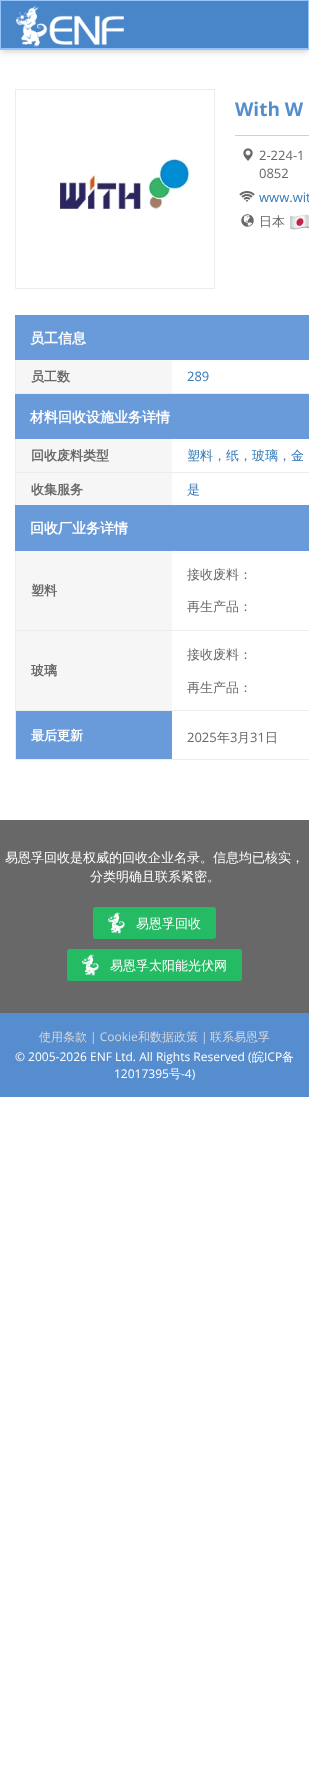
async function draw(canvas) {
  canvas.width = 309
  canvas.height = 1776
  const ctx = canvas.getContext('2d')
  ctx.miterLimit = 4
  ctx.fontKerning = 'normal'
  async function loadImage(src) {
    const img = new Image()
    img.src = src
    await img.decode()
    return img
  }

  ctx.fillStyle = '#fff'
  ctx.fillRect(0, 0, 309, 1776)
  ctx.fillStyle = '#0000000f'
  ctx.filter = 'blur(2px)'
  ctx.beginPath()
  ctx.rect(1, 3, 307, 48)
  ctx.fill()
  ctx.filter = 'none'
  ctx.fillStyle = '#0000001a'
  ctx.filter = 'blur(3px)'
  ctx.beginPath()
  ctx.rect(1, 5, 307, 48)
  ctx.fill()
  ctx.filter = 'none'
  ctx.fillStyle = '#4986c9'
  ctx.fillRect(1, 1, 307, 47)
  ctx.fillStyle = '#93c5fd'
  ctx.fillRect(0, 0, 309, 1)
  ctx.fillRect(308, 0, 1, 50)
  ctx.fillRect(0, 48, 309, 2)
  ctx.fillRect(0, 0, 1, 50)
  ctx.drawImage(await loadImage('image0.png'), 16, 6, 108, 41)
  ctx.strokeStyle = '#ececec'
  ctx.strokeRect(15.5, 89.5, 199, 199)
  ctx.drawImage(await loadImage('image1.png'), 59, 158, 134, 52)
  ctx.font = 'bold 19px Open Sans'
  ctx.fillStyle = '#548ece'
  ctx.fillText('With W', 235, 116)
  ctx.fillStyle = '#d0d0d0'
  ctx.fillRect(235, 135, 74, 1)
  ctx.drawImage(await loadImage('image2.png'), 243, 148, 10, 13)
  ctx.font = '13px Open Sans'
  ctx.fillStyle = '#686868'
  ctx.fillText('2-224-1', 259, 160)
  ctx.fillText('0852', 259, 178)
  ctx.drawImage(await loadImage('image3.png'), 239, 191, 16, 11)
  ctx.fillStyle = '#337ab7'
  ctx.fillText('www.wit', 259, 202)
  ctx.drawImage(await loadImage('image4.png'), 241, 214, 13, 13)
  ctx.font = '500 13px WenQuanYi Zen Hei'
  ctx.fillStyle = '#686868'
  ctx.fillText('日本', 259, 226)
  ctx.drawImage(await loadImage('image5.png'), 290, 214, 19, 16)
  ctx.fillStyle = '#ececec'
  ctx.fillRect(15, 393, 294, 1)
  ctx.fillStyle = '#699ada'
  ctx.fillRect(15, 315, 294, 45)
  ctx.font = 'bold 14px WenQuanYi Zen Hei'
  ctx.fillStyle = '#fff'
  ctx.fillText('员工信息', 30, 343)
  ctx.fillStyle = '#ececec'
  ctx.fillRect(15, 360, 1, 33)
  ctx.fillStyle = '#f6f6f6'
  ctx.fillRect(16, 360, 156, 33)
  ctx.font = 'bold 13px WenQuanYi Zen Hei'
  ctx.fillStyle = '#686868'
  ctx.fillText('员工数', 31, 381)
  ctx.font = '13px Open Sans'
  ctx.fillStyle = '#337ab7'
  ctx.fillText('289', 187, 381)
  ctx.fillStyle = '#ececec'
  ctx.fillRect(15, 710, 294, 1)
  ctx.fillStyle = '#699ada'
  ctx.fillRect(15, 394, 294, 45)
  ctx.font = 'bold 14px WenQuanYi Zen Hei'
  ctx.fillStyle = '#fff'
  ctx.fillText('材料回收设施业务详情', 30, 422)
  ctx.fillStyle = '#ececec'
  ctx.fillRect(15, 439, 1, 66)
  ctx.fillStyle = '#f6f6f6'
  ctx.fillRect(16, 439, 156, 33)
  ctx.font = 'bold 13px WenQuanYi Zen Hei'
  ctx.fillStyle = '#686868'
  ctx.fillText('回收废料类型', 31, 460)
  ctx.font = '500 13px WenQuanYi Zen Hei'
  ctx.fillStyle = '#337ab7'
  ctx.fillText('塑料，纸，玻璃，金', 187, 460)
  ctx.fillStyle = '#ececec'
  ctx.fillRect(16, 472, 293, 1)
  ctx.fillStyle = '#f6f6f6'
  ctx.fillRect(16, 473, 156, 32)
  ctx.font = 'bold 13px WenQuanYi Zen Hei'
  ctx.fillStyle = '#686868'
  ctx.fillText('收集服务', 31, 494)
  ctx.font = '500 13px WenQuanYi Zen Hei'
  ctx.fillStyle = '#337ab7'
  ctx.fillText('是', 187, 494)
  ctx.fillStyle = '#699ada'
  ctx.fillRect(15, 505, 294, 46)
  ctx.font = 'bold 14px WenQuanYi Zen Hei'
  ctx.fillStyle = '#fff'
  ctx.fillText('回收厂业务详情', 30, 533)
  ctx.fillStyle = '#ececec'
  ctx.fillRect(15, 551, 1, 159)
  ctx.fillStyle = '#f6f6f6'
  ctx.fillRect(16, 551, 156, 79)
  ctx.font = 'bold 13px WenQuanYi Zen Hei'
  ctx.fillStyle = '#686868'
  ctx.fillText('塑料', 31, 595)
  ctx.font = '500 13px WenQuanYi Zen Hei'
  ctx.fillText('接收废料：', 187, 579)
  ctx.fillText('再生产品：', 187, 611)
  ctx.fillStyle = '#ececec'
  ctx.fillRect(16, 630, 293, 1)
  ctx.fillStyle = '#f6f6f6'
  ctx.fillRect(16, 631, 156, 79)
  ctx.font = 'bold 13px WenQuanYi Zen Hei'
  ctx.fillStyle = '#686868'
  ctx.fillText('玻璃', 31, 675)
  ctx.font = '500 13px WenQuanYi Zen Hei'
  ctx.fillText('接收废料：', 187, 659)
  ctx.fillText('再生产品：', 187, 692)
  ctx.fillStyle = '#ececec'
  ctx.fillRect(15, 759, 294, 1)
  ctx.fillRect(15, 711, 1, 48)
  ctx.fillStyle = '#699ada'
  ctx.fillRect(16, 711, 156, 48)
  ctx.font = 'bold 13px WenQuanYi Zen Hei'
  ctx.fillStyle = '#fff'
  ctx.fillText('最后更新', 31, 740)
  ctx.font = '13px Open Sans'
  ctx.fillStyle = '#686868'
  ctx.fillText('2025', 187, 742)
  ctx.font = '500 13px WenQuanYi Zen Hei'
  ctx.fillText('年', 217, 742)
  ctx.font = '13px Open Sans'
  ctx.fillText('3', 230, 742)
  ctx.font = '500 13px WenQuanYi Zen Hei'
  ctx.fillText('月', 237, 742)
  ctx.font = '13px Open Sans'
  ctx.fillText('31', 250, 742)
  ctx.font = '500 13px WenQuanYi Zen Hei'
  ctx.fillText('日', 265, 742)
  ctx.fillRect(0, 820, 309, 193)
  ctx.fillStyle = '#fff'
  ctx.fillText('易恩孚回收是权威的回收企业名录。信息均已核实，', 5, 862)
  ctx.fillText('分类明确且联系紧密。', 90, 881)
  ctx.fillStyle = '#25ba64'
  ctx.beginPath()
  ctx.roundRect(93, 907, 123, 32, 2.5)
  ctx.fill()
  ctx.drawImage(await loadImage('image6.png'), 108, 912, 18, 22)
  ctx.fillStyle = '#fff'
  ctx.fillText('易恩孚回收', 136, 928)
  ctx.fillStyle = '#25ba64'
  ctx.beginPath()
  ctx.roundRect(67, 949, 175, 32, 2.5)
  ctx.fill()
  ctx.drawImage(await loadImage('image7.png'), 82, 954, 18, 22)
  ctx.fillStyle = '#fff'
  ctx.fillText('易恩孚太阳能光伏网', 110, 970)
  ctx.fillStyle = '#568dcf'
  ctx.fillRect(0, 1013, 309, 84)
  ctx.font = '500 12px WenQuanYi Zen Hei'
  ctx.fillStyle = '#d6d6d6'
  ctx.fillText('使用条款', 39, 1041)
  ctx.font = '12px Open Sans'
  ctx.fillText('| Cookie', 90, 1041)
  ctx.font = '500 12px WenQuanYi Zen Hei'
  ctx.fillText('和数据政策', 138, 1041)
  ctx.font = '12px Open Sans'
  ctx.fillText('|', 201, 1041)
  ctx.font = '500 12px WenQuanYi Zen Hei'
  ctx.fillText('联系易恩孚', 210, 1041)
  ctx.font = '12px Open Sans'
  ctx.fillStyle = '#fff'
  ctx.fillText('© 2005-2026 ENF Ltd. All Rights Reserved (', 15, 1061)
  ctx.font = '500 12px WenQuanYi Zen Hei'
  ctx.fillText('皖', 252, 1061)
  ctx.font = '12px Open Sans'
  ctx.fillText('ICP', 264, 1061)
  ctx.font = '500 12px WenQuanYi Zen Hei'
  ctx.fillText('备', 282, 1061)
  ctx.font = '12px Open Sans'
  ctx.fillText('12017395', 114, 1078)
  ctx.font = '500 12px WenQuanYi Zen Hei'
  ctx.fillText('号', 169, 1078)
  ctx.font = '12px Open Sans'
  ctx.fillText('-4)', 181, 1078)
}

draw(document.querySelector('canvas'))
